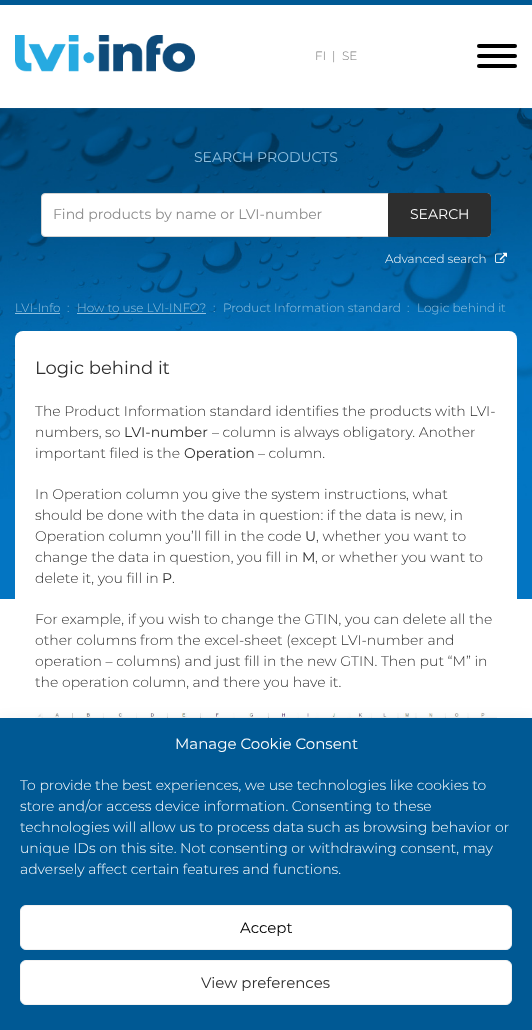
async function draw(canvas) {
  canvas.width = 532
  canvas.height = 1030
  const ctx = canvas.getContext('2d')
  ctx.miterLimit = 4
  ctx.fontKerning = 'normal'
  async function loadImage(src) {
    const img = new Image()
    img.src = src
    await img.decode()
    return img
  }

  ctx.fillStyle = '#fff'
  ctx.fillRect(0, 0, 532, 1030)
  ctx.fillStyle = '#005994'
  ctx.fillRect(0, 0, 532, 5)
  ctx.drawImage(await loadImage('image0.png'), 15, 35, 180, 37)
  ctx.font = '300 12px Montserrat'
  ctx.fillStyle = '#767676'
  ctx.fillText('FI', 315, 60)
  ctx.fillText('|', 332, 60)
  ctx.fillText('SE', 342, 60)
  ctx.fillStyle = '#000'
  ctx.beginPath()
  ctx.roundRect(477, 54, 40, 4, 2)
  ctx.fill()
  ctx.beginPath()
  ctx.roundRect(477, 44, 40, 4, 2)
  ctx.fill()
  ctx.beginPath()
  ctx.roundRect(477, 64, 40, 4, 2)
  ctx.fill()
  ctx.fillStyle = '#0375c2'
  ctx.fillRect(0, 499, 532, 100)
  ctx.drawImage(await loadImage('image1.png'), 0, 108, 532, 391)
  ctx.font = '14px Montserrat'
  ctx.fillStyle = '#90c0e0'
  ctx.fillText('SEARCH PRODUCTS', 194, 162)
  ctx.fillStyle = '#fff'
  ctx.beginPath()
  ctx.roundRect(41.5, 193.5, 449, 43, 3.5)
  ctx.fill()
  ctx.strokeStyle = '#d3d3d3'
  ctx.stroke()
  ctx.fillStyle = '#8b8b8b'
  ctx.fillText('Find products by name or LVI-number', 53, 219)
  ctx.fillStyle = '#2e2e2e'
  ctx.beginPath()
  ctx.roundRect(388.5, 193.5, 102, 43, [0, 3.5, 3.5, 0])
  ctx.fill()
  ctx.strokeStyle = '#2e2e2e'
  ctx.stroke()
  ctx.fillStyle = '#fff'
  ctx.fillText('SEARCH', 410, 219)
  ctx.font = '300 12px Montserrat'
  ctx.fillText('Advanced search', 385, 263)
  ctx.drawImage(await loadImage('image2.png'), 495, 252, 12, 11)
  ctx.fillStyle = '#90c0e0'
  ctx.fillText('LVI-Info', 15, 312)
  ctx.fillRect(15, 313, 45, 1)
  ctx.fillText(':', 67, 312)
  ctx.fillText('How to use LVI-INFO?', 77, 312)
  ctx.fillRect(77, 313, 129, 1)
  ctx.fillText(':', 213, 312)
  ctx.fillText('Product Information standard', 223, 312)
  ctx.fillText(':', 407, 312)
  ctx.fillText('Logic behind it', 417, 312)
  ctx.fillStyle = '#fff'
  ctx.beginPath()
  ctx.roundRect(15, 331, 502, 600, [8, 8, 0, 0])
  ctx.fill()
  ctx.font = '18px Montserrat'
  ctx.fillStyle = '#2e2e2e'
  ctx.fillText('Logic behind it', 35, 374)
  ctx.font = '300 14px Montserrat'
  ctx.fillText('The Product Information standard identifies the products with LVI-', 35, 416)
  ctx.fillText('numbers, so', 35, 437)
  ctx.font = '14px Montserrat'
  ctx.fillText('LVI-number', 124, 437)
  ctx.font = '300 14px Montserrat'
  ctx.fillText('– column is always obligatory. Another', 212, 437)
  ctx.fillText('important filed is the', 35, 458)
  ctx.font = '14px Montserrat'
  ctx.fillText('Operation', 184, 458)
  ctx.font = '300 14px Montserrat'
  ctx.fillText('– column.', 258, 458)
  ctx.fillText('In Operation column you give the system instructions, what', 35, 499)
  ctx.fillText('should be done with the data in question: if the data is new, in', 35, 520)
  ctx.fillText('Operation column you’ll fill in the code', 35, 541)
  ctx.font = '14px Montserrat'
  ctx.fillText('U', 305, 541)
  ctx.font = '300 14px Montserrat'
  ctx.fillText(', whether you want to', 316, 541)
  ctx.fillText('change the data in question, you fill in', 35, 562)
  ctx.font = '14px Montserrat'
  ctx.fillText('M', 302, 562)
  ctx.font = '300 14px Montserrat'
  ctx.fillText(', or whether you want to', 315, 562)
  ctx.fillText('delete it, you fill in', 35, 583)
  ctx.font = '14px Montserrat'
  ctx.fillText('P', 162, 583)
  ctx.font = '300 14px Montserrat'
  ctx.fillText('.', 172, 583)
  ctx.fillText('For example, if you wish to change the GTIN, you can delete all the', 35, 624)
  ctx.fillText('other columns from the excel-sheet (except LVI-number and', 35, 645)
  ctx.fillText('operation – columns) and just fill in the new GTIN. Then put “M” in', 35, 666)
  ctx.fillText('the operation column, and there you have it.', 35, 687)
  ctx.drawImage(await loadImage('image3.png'), 35, 713, 462, 5)
  ctx.fillStyle = '#00000030'
  ctx.filter = 'blur(10px)'
  ctx.beginPath()
  ctx.rect(0, 728, 532, 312)
  ctx.fill()
  ctx.filter = 'none'
  ctx.fillStyle = '#005994'
  ctx.fillRect(0, 718, 532, 312)
  ctx.font = '15px Montserrat'
  ctx.fillStyle = '#fff'
  ctx.fillText('Manage Cookie Consent', 175, 749)
  ctx.font = '300 14px Montserrat'
  ctx.fillText('To provide the best experiences, we use technologies like cookies to', 20, 790)
  ctx.fillText('store and/or access device information. Consenting to these', 20, 811)
  ctx.fillText('technologies will allow us to process data such as browsing behavior or', 20, 832)
  ctx.fillText('unique IDs on this site. Not consenting or withdrawing consent, may', 20, 853)
  ctx.fillText('adversely affect certain features and functions.', 20, 874)
  ctx.beginPath()
  ctx.roundRect(20.5, 905.5, 491, 44, 5.5)
  ctx.fill()
  ctx.strokeStyle = '#f2f2f2'
  ctx.stroke()
  ctx.font = '15px Montserrat'
  ctx.fillStyle = '#000'
  ctx.fillText('Accept', 240, 933)
  ctx.fillStyle = '#fff'
  ctx.beginPath()
  ctx.roundRect(20.5, 960.5, 491, 44, 5.5)
  ctx.fill()
  ctx.stroke()
  ctx.fillStyle = '#2e2e2e'
  ctx.fillText('View preferences', 201, 988)
}

draw(document.querySelector('canvas'))
